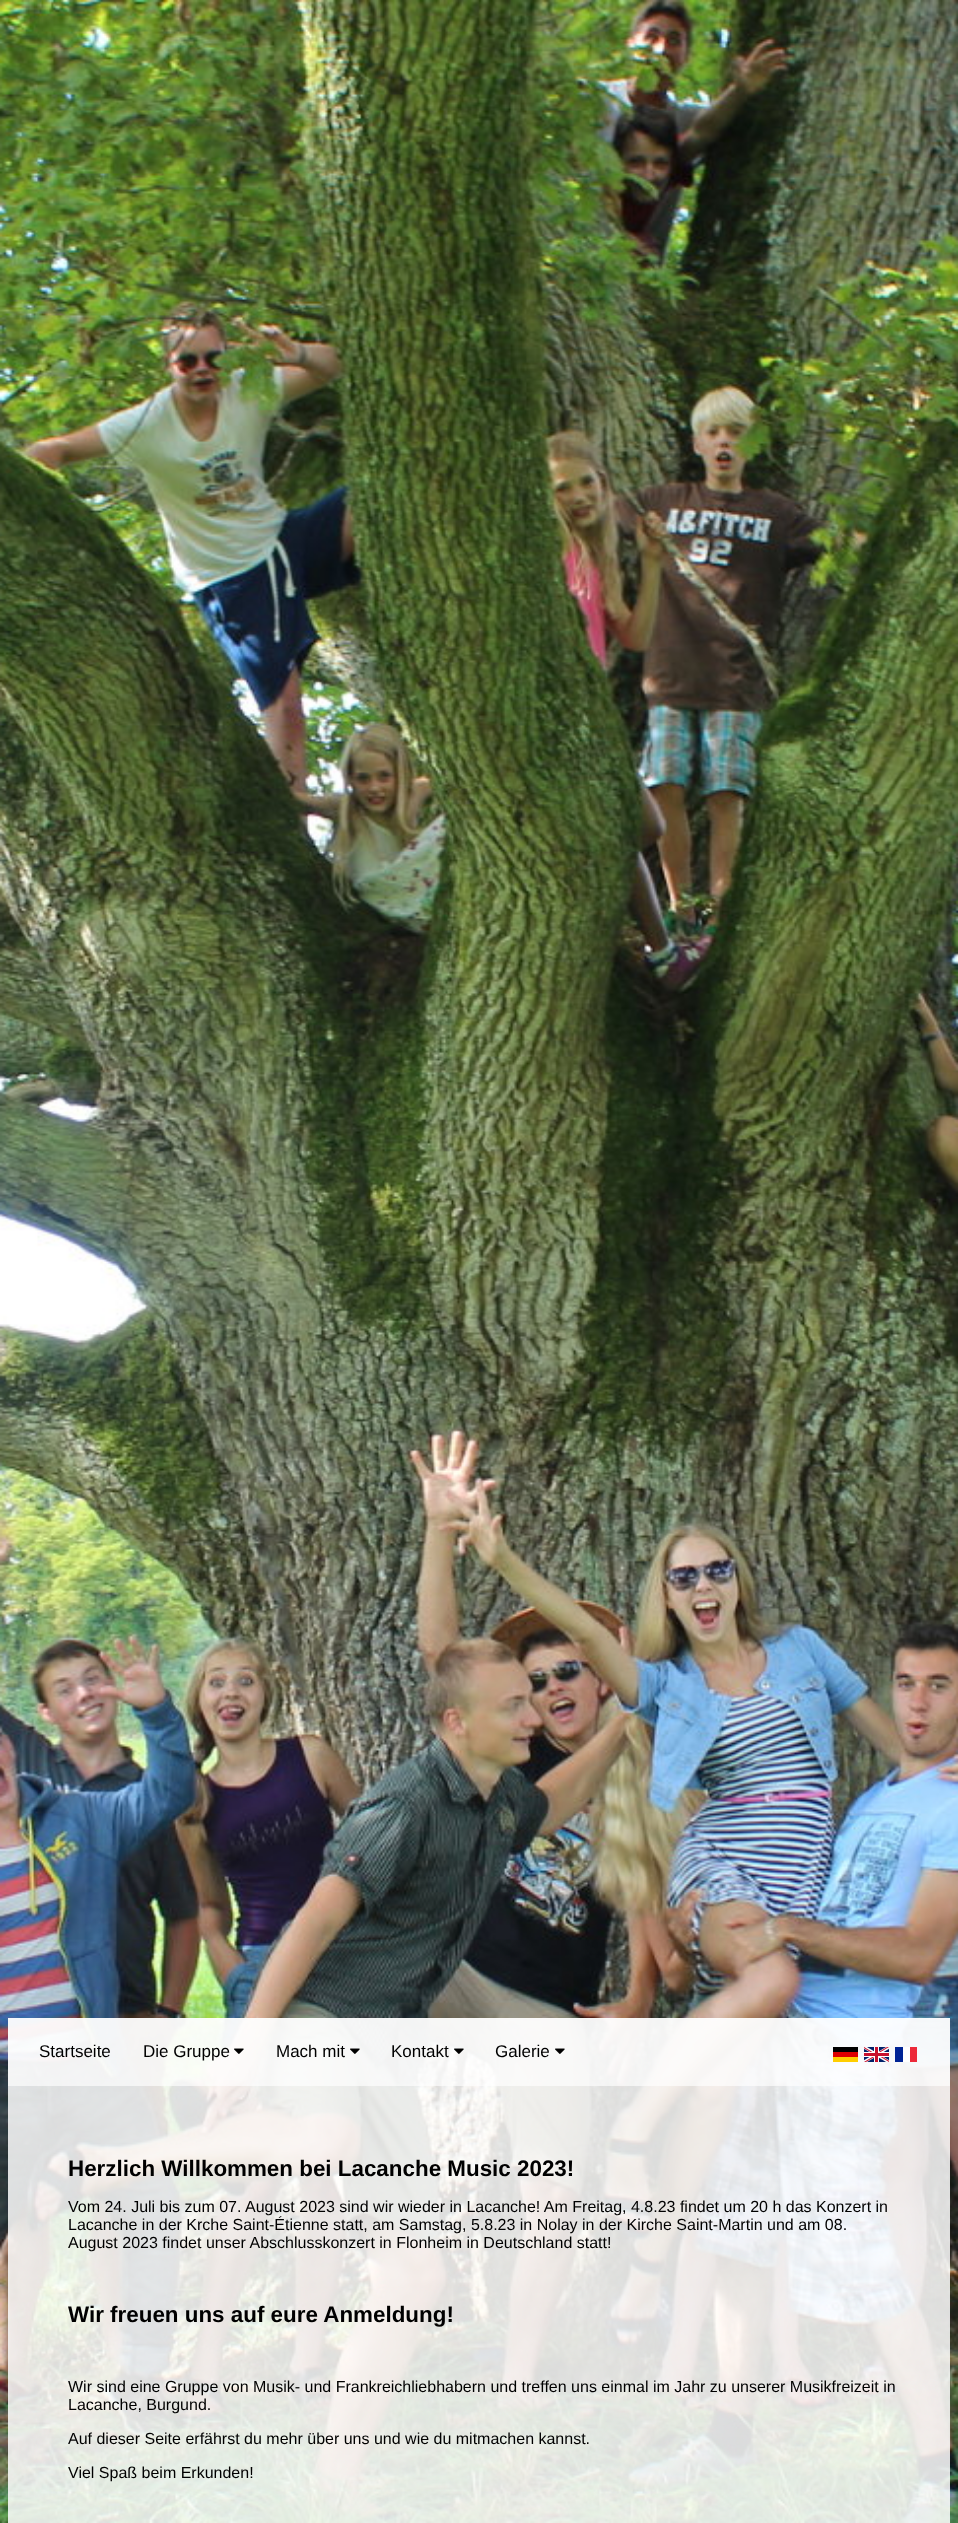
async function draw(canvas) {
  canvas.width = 958
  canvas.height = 2523
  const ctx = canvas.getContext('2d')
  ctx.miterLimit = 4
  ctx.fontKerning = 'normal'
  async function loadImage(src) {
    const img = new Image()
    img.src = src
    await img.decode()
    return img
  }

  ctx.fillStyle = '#fff'
  ctx.fillRect(0, 0, 958, 2523)
  ctx.drawImage(await loadImage('image0.png'), 0, 0, 958, 2523)
  ctx.fillStyle = '#fffffff2'
  ctx.fillRect(8, 2018, 942, 68)
  ctx.font = '17px Liberation Sans'
  ctx.fillStyle = '#000'
  ctx.fillText('Startseite', 39, 2057)
  ctx.fillText('Die Gruppe', 143, 2057)
  ctx.drawImage(await loadImage('image1.png'), 234, 2048, 10, 6)
  ctx.fillText('Mach mit', 276, 2057)
  ctx.drawImage(await loadImage('image2.png'), 350, 2048, 10, 6)
  ctx.fillText('Kontakt', 391, 2057)
  ctx.drawImage(await loadImage('image3.png'), 454, 2048, 10, 6)
  ctx.fillText('Galerie', 495, 2057)
  ctx.drawImage(await loadImage('image4.png'), 555, 2048, 10, 6)
  ctx.fillRect(833, 2047, 25, 5)
  ctx.fillStyle = '#d00'
  ctx.fillRect(833, 2052, 25, 5)
  ctx.fillStyle = '#ffce00'
  ctx.fillRect(833, 2057, 25, 5)
  ctx.drawImage(await loadImage('image5.png'), 864, 2047, 25, 15)
  ctx.fillStyle = '#002395'
  ctx.fillRect(895, 2047, 8, 15)
  ctx.fillStyle = '#fff'
  ctx.fillRect(903, 2047, 7, 15)
  ctx.fillStyle = '#ed2939'
  ctx.fillRect(910, 2047, 7, 15)
  ctx.fillStyle = '#ffffffd9'
  ctx.fillRect(8, 2086, 942, 437)
  ctx.font = 'bold 22.4px Liberation Sans'
  ctx.fillStyle = '#000'
  ctx.fillText('Herzlich Willkommen bei Lacanche Music 2023!', 68, 2176)
  ctx.font = '16px Liberation Sans'
  ctx.fillText('Vom 24. Juli bis zum 07. August 2023 sind wir wieder in Lacanche! Am Freitag, 4.8.23 findet um 20 h das Konzert in', 68, 2212)
  ctx.fillText('Lacanche in der Krche Saint-Étienne statt, am Samstag, 5.8.23 in Nolay in der Kirche Saint-Martin und am 08.', 68, 2230)
  ctx.fillText('August 2023 findet unser Abschlusskonzert in Flonheim in Deutschland statt!', 68, 2248)
  ctx.font = 'bold 22.4px Liberation Sans'
  ctx.fillText('Wir freuen uns auf eure Anmeldung!', 68, 2322)
  ctx.font = '16px Liberation Sans'
  ctx.fillText('Wir sind eine Gruppe von Musik- und Frankreichliebhabern und treffen uns einmal im Jahr zu unserer Musikfreizeit in', 68, 2392)
  ctx.fillText('Lacanche, Burgund.', 68, 2410)
  ctx.fillText('Auf dieser Seite erfährst du mehr über uns und wie du mitmachen kannst.', 68, 2444)
  ctx.fillText('Viel Spaß beim Erkunden!', 68, 2478)
}

draw(document.querySelector('canvas'))
